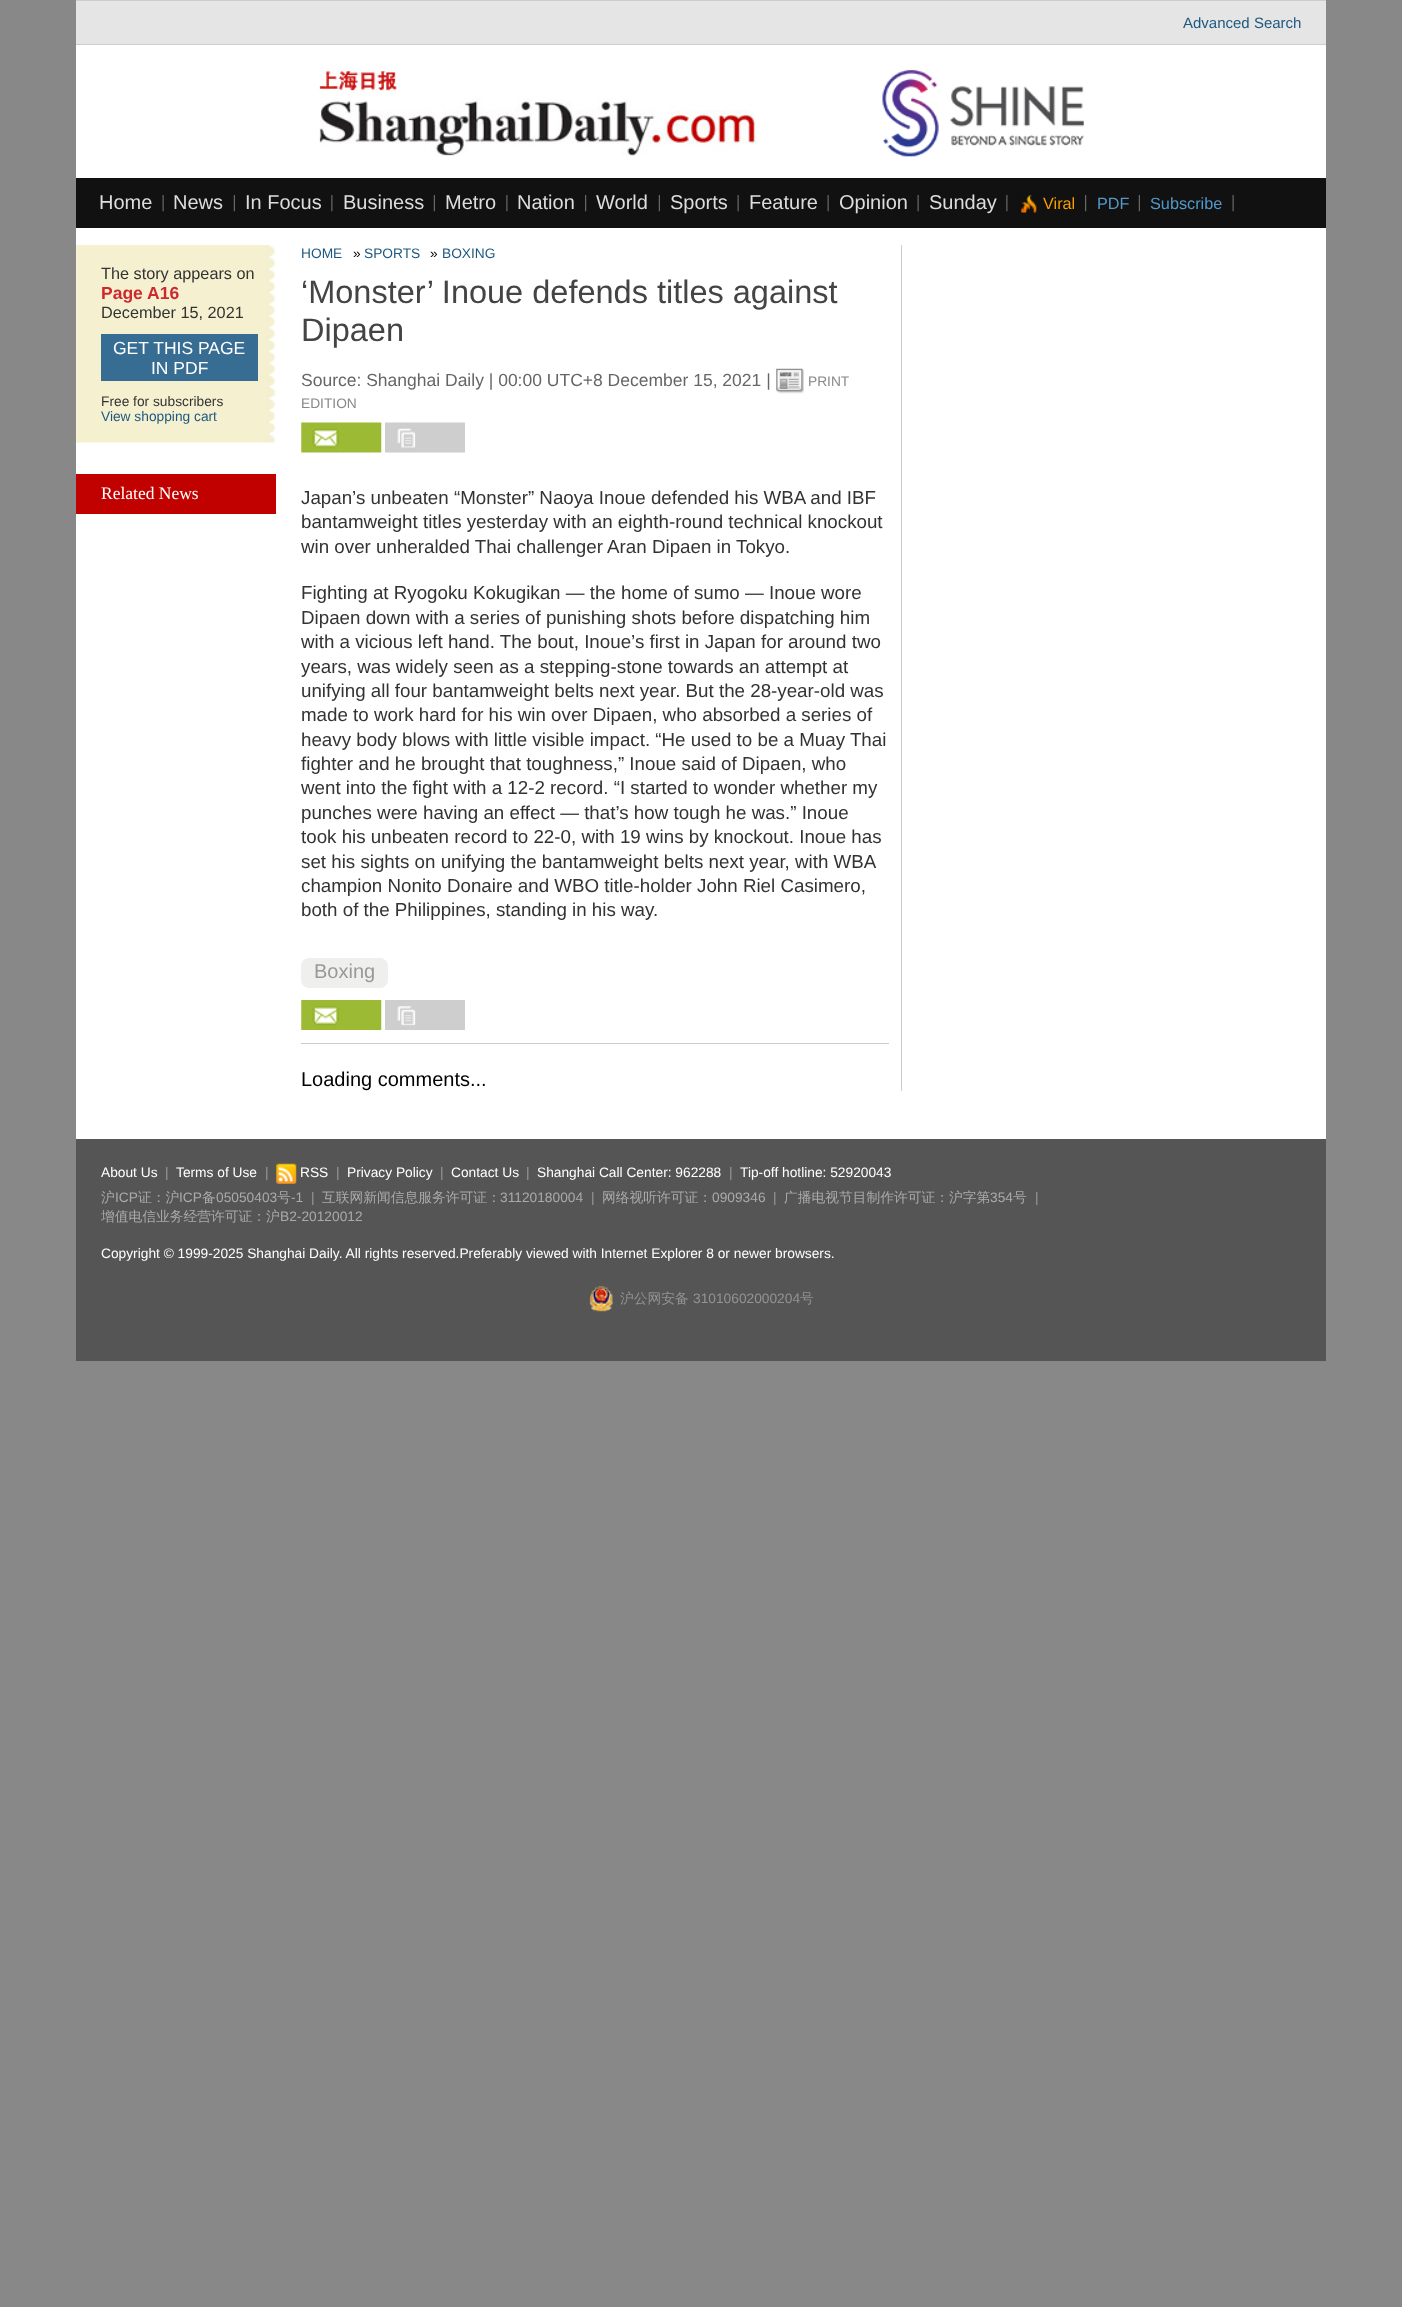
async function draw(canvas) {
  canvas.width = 1402
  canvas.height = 2307
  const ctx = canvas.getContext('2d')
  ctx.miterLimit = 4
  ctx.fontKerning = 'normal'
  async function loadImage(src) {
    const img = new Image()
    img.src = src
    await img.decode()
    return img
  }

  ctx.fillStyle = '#888'
  ctx.fillRect(0, 0, 1402, 2307)
  ctx.fillStyle = '#fff'
  ctx.fillRect(76, 45, 1250, 1094)
  ctx.fillStyle = '#e5e5e5'
  ctx.fillRect(76, 1, 1250, 43)
  ctx.fillStyle = '#ccc'
  ctx.fillRect(76, 0, 1250, 1)
  ctx.fillRect(76, 44, 1250, 1)
  ctx.font = '15px Liberation Sans'
  ctx.fillStyle = '#1e5880'
  ctx.fillText('Advanced Search', 1183, 28)
  ctx.drawImage(await loadImage('image0.png'), 319, 68, 439, 88)
  ctx.drawImage(await loadImage('image1.png'), 882, 69, 202, 88)
  ctx.fillStyle = '#111'
  ctx.fillRect(76, 178, 1250, 50)
  ctx.drawImage(await loadImage('image2.png'), 162, 195, 2, 17)
  ctx.font = '20px Liberation Sans'
  ctx.fillStyle = '#ddd'
  ctx.fillText('Home', 99, 209)
  ctx.drawImage(await loadImage('image3.png'), 233, 195, 2, 17)
  ctx.fillText('News', 173, 209)
  ctx.drawImage(await loadImage('image4.png'), 331, 195, 2, 17)
  ctx.fillText('In Focus', 245, 209)
  ctx.drawImage(await loadImage('image3.png'), 433, 195, 2, 17)
  ctx.fillText('Business', 343, 209)
  ctx.drawImage(await loadImage('image4.png'), 506, 195, 2, 17)
  ctx.fillText('Metro', 445, 209)
  ctx.drawImage(await loadImage('image5.png'), 585, 195, 2, 17)
  ctx.fillText('Nation', 517, 209)
  ctx.drawImage(await loadImage('image3.png'), 658, 195, 2, 17)
  ctx.fillText('World', 596, 209)
  ctx.drawImage(await loadImage('image2.png'), 737, 195, 2, 17)
  ctx.fillText('Sports', 670, 209)
  ctx.drawImage(await loadImage('image2.png'), 827, 195, 2, 17)
  ctx.fillText('Feature', 749, 209)
  ctx.drawImage(await loadImage('image2.png'), 917, 195, 2, 17)
  ctx.fillText('Opinion', 839, 209)
  ctx.drawImage(await loadImage('image4.png'), 1006, 195, 2, 17)
  ctx.fillText('Sunday', 929, 209)
  ctx.drawImage(await loadImage('image5.png'), 1085, 195, 2, 17)
  ctx.drawImage(await loadImage('image6.png'), 1017, 193, 21, 20)
  ctx.font = '16.25px Liberation Sans'
  ctx.fillStyle = '#fa9e00'
  ctx.fillText('Viral', 1043, 209)
  ctx.drawImage(await loadImage('image3.png'), 1138, 195, 2, 17)
  ctx.fillStyle = '#5398c7'
  ctx.fillText('PDF', 1097, 209)
  ctx.drawImage(await loadImage('image2.png'), 1232, 195, 2, 17)
  ctx.fillText('Subscribe', 1150, 209)
  ctx.drawImage(await loadImage('image7.png'), 76, 245, 200, 198)
  ctx.fillStyle = '#333'
  ctx.fillText('The story appears on', 101, 279)
  ctx.font = 'bold 17.5px Liberation Sans'
  ctx.fillStyle = '#ce282f'
  ctx.fillText('Page A16', 101, 299)
  ctx.font = '16.25px Liberation Sans'
  ctx.fillStyle = '#333'
  ctx.fillText('December 15, 2021', 101, 318)
  ctx.fillStyle = '#376d93'
  ctx.fillRect(101, 334, 157, 47)
  ctx.font = '17.5px Liberation Sans'
  ctx.fillStyle = '#fff'
  ctx.fillText('GET THIS PAGE', 113, 354)
  ctx.fillText('IN PDF', 151, 374)
  ctx.font = '13.75px Liberation Sans'
  ctx.fillStyle = '#333'
  ctx.fillText('Free for subscribers', 101, 406)
  ctx.fillStyle = '#1e5880'
  ctx.fillText('View shopping cart', 101, 421)
  ctx.fillStyle = '#c10000'
  ctx.fillRect(76, 474, 200, 40)
  ctx.font = '17.5px Liberation Serif'
  ctx.fillStyle = '#fff'
  ctx.fillText('Related News', 101, 499)
  ctx.fillStyle = '#ccc'
  ctx.fillRect(901, 245, 1, 846)
  ctx.font = '13.75px Liberation Sans'
  ctx.fillStyle = '#1e5880'
  ctx.fillText('HOME', 301, 258)
  ctx.fillStyle = '#000'
  ctx.fillText('»', 353, 258)
  ctx.fillStyle = '#1e5880'
  ctx.fillText('SPORTS', 364, 258)
  ctx.fillStyle = '#000'
  ctx.fillText('»', 430, 258)
  ctx.fillStyle = '#1e5880'
  ctx.fillText('BOXING', 442, 258)
  ctx.font = '32.5px Liberation Sans'
  ctx.fillStyle = '#444'
  ctx.fillText('‘Monster’ Inoue defends titles against', 301, 303)
  ctx.fillText('Dipaen', 301, 341)
  ctx.font = '17.5px Liberation Sans'
  ctx.fillStyle = '#666'
  ctx.fillText('Source: Shanghai Daily | 00:00 UTC+8 December 15, 2021 |', 301, 386)
  ctx.drawImage(await loadImage('image8.png'), 776, 368, 28, 26)
  ctx.font = '13.75px Liberation Sans'
  ctx.fillStyle = '#888'
  ctx.fillText('PRINT', 808, 386)
  ctx.fillText('EDITION', 301, 408)
  ctx.drawImage(await loadImage('image9.png'), 301, 422, 81, 31)
  ctx.drawImage(await loadImage('image10.png'), 385, 422, 80, 31)
  ctx.font = '18.75px Liberation Sans'
  ctx.fillStyle = '#333'
  ctx.fillText('Japan’s unbeaten “Monster” Naoya Inoue defended his WBA and IBF', 301, 504)
  ctx.fillText('bantamweight titles yesterday with an eighth-round technical knockout', 301, 528)
  ctx.fillText('win over unheralded Thai challenger Aran Dipaen in Tokyo.', 301, 553)
  ctx.fillText('Fighting at Ryogoku Kokugikan — the home of sumo — Inoue wore', 301, 599)
  ctx.fillText('Dipaen down with a series of punishing shots before dispatching him', 301, 624)
  ctx.fillText('with a vicious left hand. The bout, Inoue’s first in Japan for around two', 301, 648)
  ctx.fillText('years, was widely seen as a stepping-stone towards an attempt at', 301, 673)
  ctx.fillText('unifying all four bantamweight belts next year. But the 28-year-old was', 301, 697)
  ctx.fillText('made to work hard for his win over Dipaen, who absorbed a series of', 301, 721)
  ctx.fillText('heavy body blows with little visible impact. “He used to be a Muay Thai', 301, 746)
  ctx.fillText('fighter and he brought that toughness,” Inoue said of Dipaen, who', 301, 770)
  ctx.fillText('went into the fight with a 12-2 record. “I started to wonder whether my', 301, 794)
  ctx.fillText('punches were having an effect — that’s how tough he was.” Inoue', 301, 819)
  ctx.fillText('took his unbeaten record to 22-0, with 19 wins by knockout. Inoue has', 301, 843)
  ctx.fillText('set his sights on unifying the bantamweight belts next year, with WBA', 301, 868)
  ctx.fillText('champion Nonito Donaire and WBO title-holder John Riel Casimero,', 301, 892)
  ctx.fillText('both of the Philippines, standing in his way.', 301, 916)
  ctx.fillStyle = '#efefee'
  ctx.beginPath()
  ctx.roundRect(301, 958, 87, 30, 8)
  ctx.fill()
  ctx.font = '20px Liberation Sans'
  ctx.fillStyle = '#999'
  ctx.fillText('Boxing', 314, 978)
  ctx.fillStyle = '#ccc'
  ctx.fillRect(301, 1043, 588, 1)
  ctx.drawImage(await loadImage('image11.png'), 301, 1000, 81, 30)
  ctx.drawImage(await loadImage('image12.png'), 385, 1000, 80, 30)
  ctx.fillStyle = '#000'
  ctx.fillText('Loading comments...', 301, 1086)
  ctx.fillStyle = '#555'
  ctx.fillRect(76, 1139, 1250, 222)
  ctx.font = '13.75px Liberation Sans'
  ctx.fillStyle = '#fff'
  ctx.fillText('About Us', 101, 1177)
  ctx.fillStyle = '#999'
  ctx.fillText('|', 165, 1177)
  ctx.fillStyle = '#fff'
  ctx.fillText('Terms of Use', 176, 1177)
  ctx.fillStyle = '#999'
  ctx.fillText('|', 265, 1177)
  ctx.drawImage(await loadImage('image13.png'), 276, 1163, 21, 21)
  ctx.fillStyle = '#fff'
  ctx.fillText('RSS', 300, 1177)
  ctx.fillStyle = '#999'
  ctx.fillText('|', 336, 1177)
  ctx.fillStyle = '#fff'
  ctx.fillText('Privacy Policy', 347, 1177)
  ctx.fillStyle = '#999'
  ctx.fillText('|', 440, 1177)
  ctx.fillStyle = '#fff'
  ctx.fillText('Contact Us', 451, 1177)
  ctx.fillStyle = '#999'
  ctx.fillText('|', 526, 1177)
  ctx.fillStyle = '#fff'
  ctx.fillText('Shanghai Call Center: 962288', 537, 1177)
  ctx.fillStyle = '#999'
  ctx.fillText('|', 729, 1177)
  ctx.fillStyle = '#fff'
  ctx.fillText('Tip-off hotline: 52920043', 740, 1177)
  ctx.font = '500 13.75px WenQuanYi Zen Hei'
  ctx.fillStyle = '#aaa'
  ctx.fillText('沪', 101, 1202)
  ctx.font = '13.75px Liberation Sans'
  ctx.fillText('ICP', 115, 1202)
  ctx.font = '500 13.75px WenQuanYi Zen Hei'
  ctx.fillText('证：沪', 138, 1202)
  ctx.font = '13.75px Liberation Sans'
  ctx.fillText('ICP', 179, 1202)
  ctx.font = '500 13.75px WenQuanYi Zen Hei'
  ctx.fillText('备', 202, 1202)
  ctx.font = '13.75px Liberation Sans'
  ctx.fillText('05050403', 216, 1202)
  ctx.font = '500 13.75px WenQuanYi Zen Hei'
  ctx.fillText('号', 277, 1202)
  ctx.font = '13.75px Liberation Sans'
  ctx.fillText('-1', 291, 1202)
  ctx.fillStyle = '#999'
  ctx.fillText('|', 311, 1202)
  ctx.font = '500 13.75px WenQuanYi Zen Hei'
  ctx.fillStyle = '#aaa'
  ctx.fillText('互联网新闻信息服务许可证：', 322, 1202)
  ctx.font = '13.75px Liberation Sans'
  ctx.fillText('31120180004', 500, 1202)
  ctx.fillStyle = '#999'
  ctx.fillText('|', 591, 1202)
  ctx.font = '500 13.75px WenQuanYi Zen Hei'
  ctx.fillStyle = '#aaa'
  ctx.fillText('网络视听许可证：', 602, 1202)
  ctx.font = '13.75px Liberation Sans'
  ctx.fillText('0909346', 712, 1202)
  ctx.fillStyle = '#999'
  ctx.fillText('|', 773, 1202)
  ctx.font = '500 13.75px WenQuanYi Zen Hei'
  ctx.fillStyle = '#aaa'
  ctx.fillText('广播电视节目制作许可证：沪字第', 784, 1202)
  ctx.font = '13.75px Liberation Sans'
  ctx.fillText('354', 990, 1202)
  ctx.font = '500 13.75px WenQuanYi Zen Hei'
  ctx.fillText('号', 1013, 1202)
  ctx.font = '13.75px Liberation Sans'
  ctx.fillStyle = '#999'
  ctx.fillText('|', 1035, 1202)
  ctx.font = '500 13.75px WenQuanYi Zen Hei'
  ctx.fillStyle = '#aaa'
  ctx.fillText('增值电信业务经营许可证：沪', 101, 1221)
  ctx.font = '13.75px Liberation Sans'
  ctx.fillText('B2-20120012', 280, 1221)
  ctx.fillStyle = '#fff'
  ctx.fillText('Copyright © 1999-2025 Shanghai Daily. All rights reserved.Preferably viewed with Internet Explorer 8 or newer browsers.', 101, 1258)
  ctx.drawImage(await loadImage('image14.png'), 589, 1286, 24, 26)
  ctx.font = '500 13.75px WenQuanYi Zen Hei'
  ctx.fillStyle = '#939393'
  ctx.fillText('沪公网安备', 620, 1303)
  ctx.font = '13.75px Liberation Sans'
  ctx.fillText('31010602000204', 693, 1303)
  ctx.font = '500 13.75px WenQuanYi Zen Hei'
  ctx.fillText('号', 800, 1303)
}

draw(document.querySelector('canvas'))
